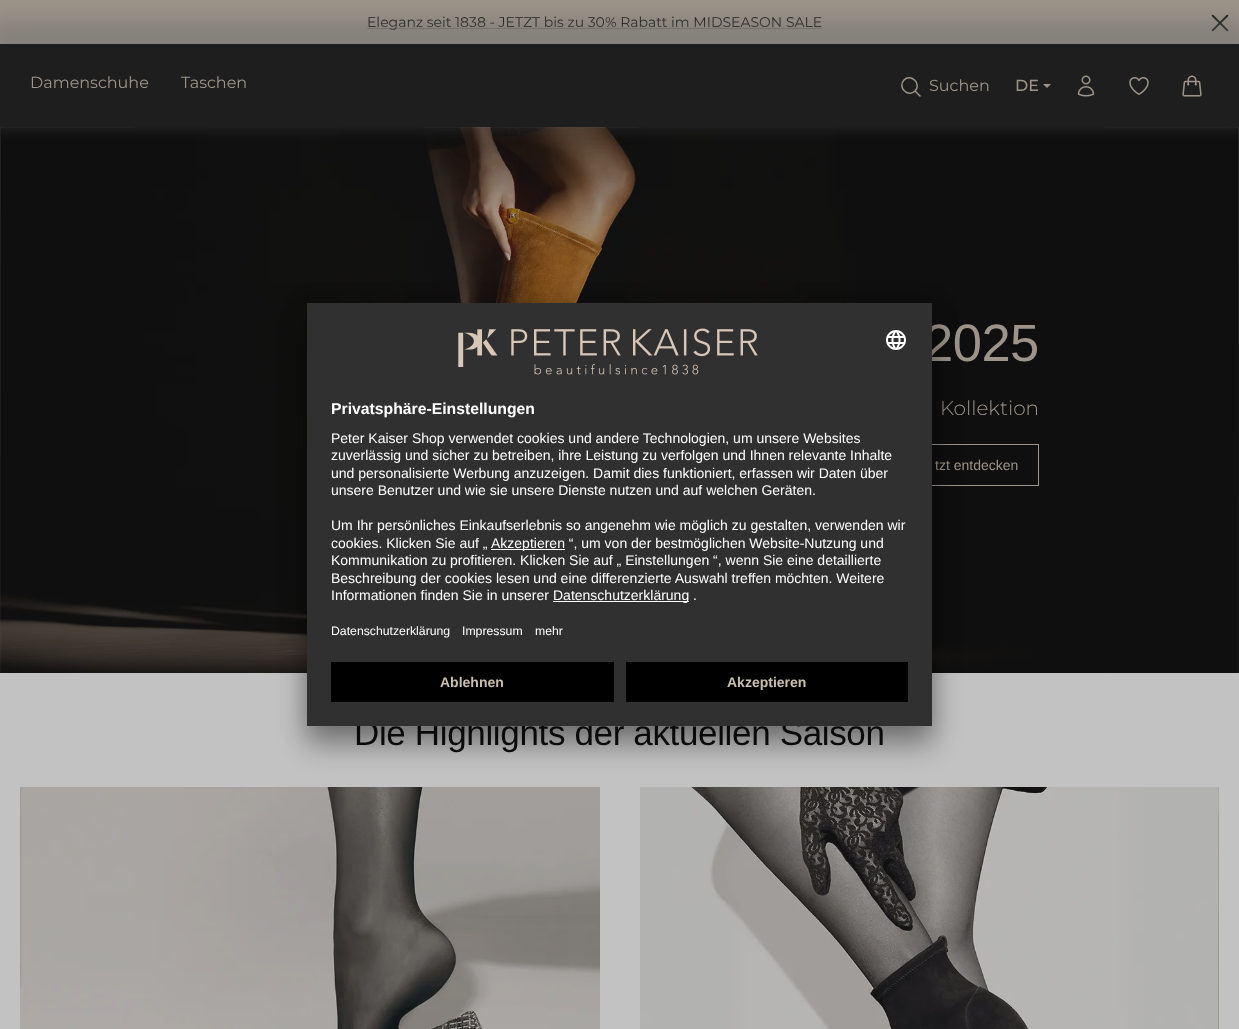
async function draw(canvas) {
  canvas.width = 1239
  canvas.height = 1029
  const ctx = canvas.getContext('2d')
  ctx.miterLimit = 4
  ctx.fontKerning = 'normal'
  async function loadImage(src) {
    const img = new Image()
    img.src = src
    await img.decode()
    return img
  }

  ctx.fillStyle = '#c2c2c2'
  ctx.fillRect(0, 0, 1239, 1029)
  ctx.fillStyle = '#9d9489'
  ctx.fillRect(0, 0, 1239, 44)
  ctx.fillStyle = '#7b756e'
  ctx.fillRect(367, 28, 455, 1)
  ctx.font = '14px Montserrat'
  ctx.fillStyle = '#0f0f0f'
  ctx.fillText('Eleganz seit 1838 - JETZT bis zu 30% Rabatt im MIDSEASON SALE', 367, 27)
  ctx.drawImage(await loadImage('image0.png'), 1211, 14, 18, 18)
  ctx.drawImage(await loadImage('image4.png'), 0, 127, 1239, 546)
  ctx.fillStyle = '#6d6d6d80'
  ctx.filter = 'blur(10px)'
  ctx.beginPath()
  ctx.rect(-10, 19, 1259, 103)
  ctx.fill()
  ctx.filter = 'none'
  ctx.fillStyle = '#1e1e1e'
  ctx.fillRect(0, 44, 1239, 83)
  ctx.font = '16px Montserrat'
  ctx.fillStyle = '#9d9489'
  ctx.fillText('Damenschuhe', 30, 88)
  ctx.fillText('Taschen', 181, 88)
  ctx.beginPath()
  ctx.moveTo(920, 96)
  ctx.lineTo(915, 91)
  ctx.moveTo(915, 91)
  ctx.bezierCurveTo(922, 84, 911, 73, 904, 80)
  ctx.bezierCurveTo(897, 87, 908, 98, 915, 91)
  ctx.closePath()
  ctx.strokeStyle = '#9d9489'
  ctx.lineWidth = 1.5
  ctx.lineCap = 'round'
  ctx.lineJoin = 'round'
  ctx.stroke()
  ctx.fillText('Suchen', 929, 91)
  ctx.font = '500 16px Montserrat'
  ctx.fillText('DE', 1015, 91)
  ctx.beginPath()
  ctx.moveTo(1043, 84)
  ctx.lineTo(1051, 84)
  ctx.lineTo(1047, 88)
  ctx.closePath()
  ctx.fill()
  ctx.drawImage(await loadImage('image1.png'), 1077, 75, 18, 22)
  ctx.drawImage(await loadImage('image2.png'), 1129, 77, 20, 18)
  ctx.drawImage(await loadImage('image3.png'), 1182, 75, 20, 22)
  ctx.letterSpacing = '-0.5px'
  ctx.font = '52.5px Liberation Sans'
  ctx.fillText('2025', 924, 361)
  ctx.letterSpacing = '0px'
  ctx.font = '300 20px Montserrat'
  ctx.fillText('Kollektion', 940, 415)
  ctx.lineWidth = 1
  ctx.lineJoin = 'miter'
  ctx.strokeRect(899.5, 444.5, 139, 41)
  ctx.font = '14px Liberation Sans'
  ctx.fillText('tzt entdecken', 935, 470)
  ctx.letterSpacing = '-0.35px'
  ctx.font = '35px Liberation Sans'
  ctx.fillStyle = '#0f0f0f'
  ctx.fillText('Die Highlights der aktuellen Saison', 354, 745)
  ctx.drawImage(await loadImage('image5.png'), 20, 787, 580, 242)
  ctx.drawImage(await loadImage('image6.png'), 640, 787, 579, 242)
  ctx.fillStyle = '#0000004d'
  ctx.filter = 'blur(14px)'
  ctx.beginPath()
  ctx.rect(307, 323, 625, 423)
  ctx.fill()
  ctx.filter = 'none'
  ctx.fillStyle = '#00000038'
  ctx.filter = 'blur(13px)'
  ctx.beginPath()
  ctx.rect(307, 308, 625, 423)
  ctx.fill()
  ctx.filter = 'none'
  ctx.fillStyle = '#303030'
  ctx.fillRect(307, 303, 625, 423)
  ctx.drawImage(await loadImage('image7.png'), 458, 328, 300, 47)
  ctx.drawImage(await loadImage('image8.png'), 886, 330, 20, 20)
  ctx.letterSpacing = '0px'
  ctx.font = 'bold 15.75px Liberation Sans'
  ctx.fillStyle = '#fff'
  ctx.fillText('Privatsphäre-Einstellungen', 331, 414)
  ctx.font = '14px Liberation Sans'
  ctx.fillText('Peter Kaiser Shop verwendet cookies und andere Technologien, um unsere Websites', 331, 443)
  ctx.fillText('zuverlässig und sicher zu betreiben, ihre Leistung zu verfolgen und Ihnen relevante Inhalte', 331, 460)
  ctx.fillText('und personalisierte Werbung anzuzeigen. Damit dies funktioniert, erfassen wir Daten über', 331, 478)
  ctx.fillText('unsere Benutzer und wie sie unsere Dienste nutzen und auf welchen Geräten.', 331, 495)
  ctx.fillText('Um Ihr persönliches Einkaufserlebnis so angenehm wie möglich zu gestalten, verwenden wir', 331, 530)
  ctx.fillText('cookies. Klicken Sie auf „', 331, 548)
  ctx.fillRect(491, 549, 74, 1)
  ctx.fillText('Akzeptieren “, um von der bestmöglichen Website-Nutzung und', 491, 548)
  ctx.fillText('Kommunikation zu profitieren. Klicken Sie auf „ Einstellungen “, wenn Sie eine detaillierte', 331, 565)
  ctx.fillText('Beschreibung der cookies lesen und eine differenzierte Auswahl treffen möchten. Weitere', 331, 583)
  ctx.fillText('Informationen finden Sie in unserer', 331, 600)
  ctx.fillRect(553, 601, 136, 1)
  ctx.fillText('Datenschutzerklärung .', 553, 600)
  ctx.font = '12.25px Liberation Sans'
  ctx.fillText('Datenschutzerklärung', 331, 635)
  ctx.fillText('Impressum', 462, 635)
  ctx.fillText('mehr', 535, 635)
  ctx.fillStyle = '#000'
  ctx.fillRect(331, 662, 283, 40)
  ctx.font = 'bold 14px Liberation Sans'
  ctx.fillStyle = '#cabeae'
  ctx.fillText('Ablehnen', 440, 687)
  ctx.fillStyle = '#000'
  ctx.fillRect(626, 662, 282, 40)
  ctx.fillStyle = '#cabeae'
  ctx.fillText('Akzeptieren', 727, 687)
}

draw(document.querySelector('canvas'))
